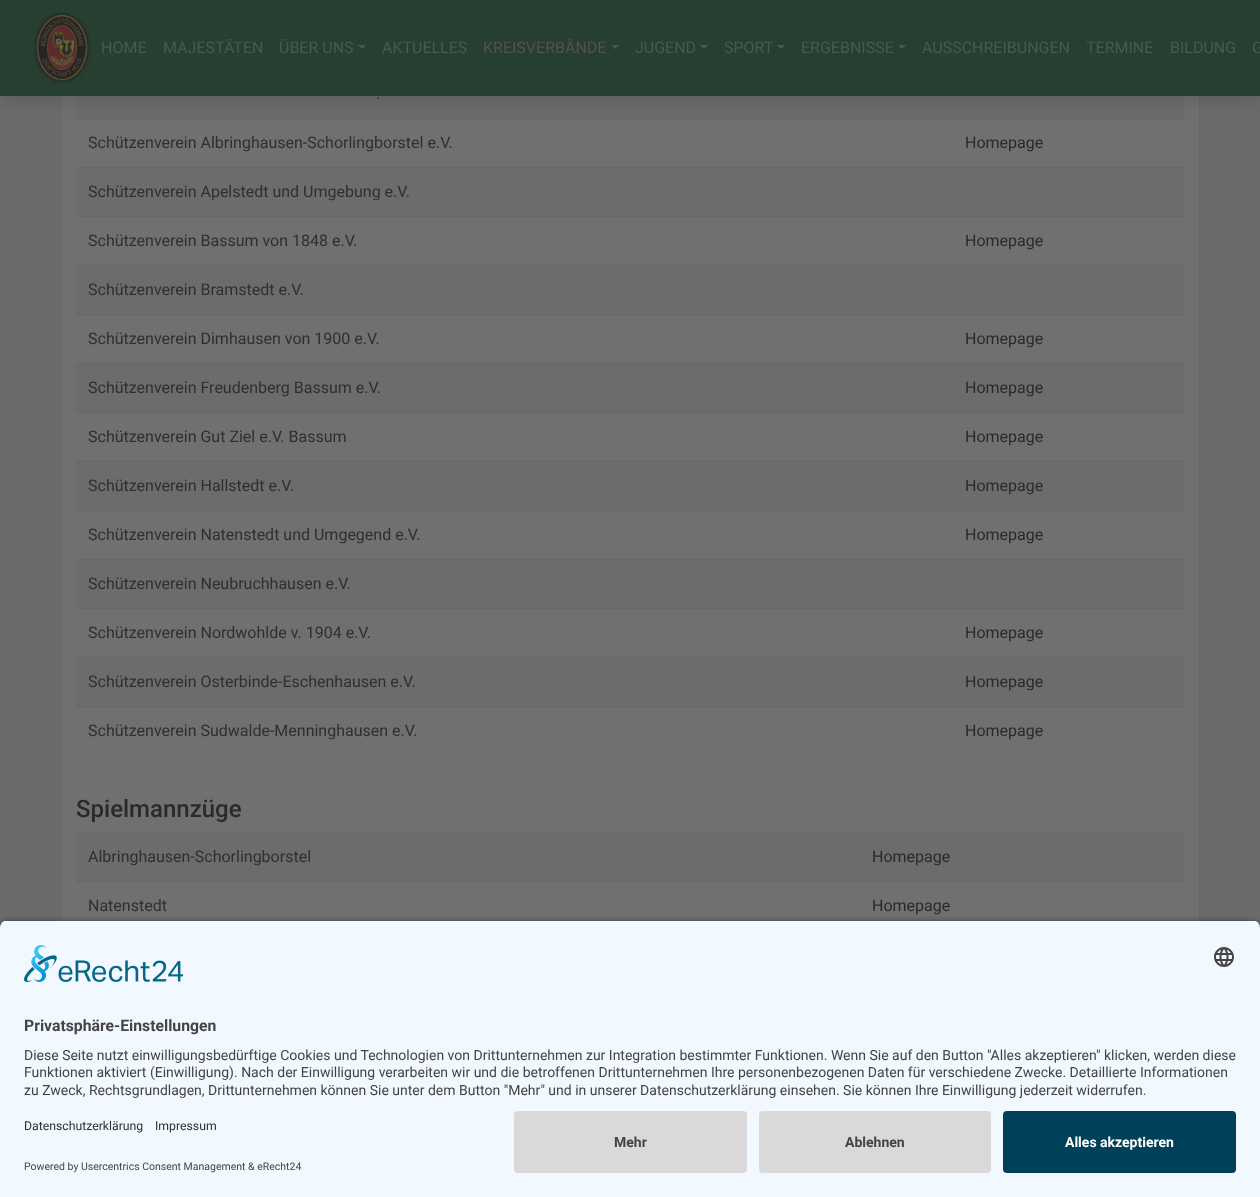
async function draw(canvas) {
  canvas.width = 1260
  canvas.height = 1197
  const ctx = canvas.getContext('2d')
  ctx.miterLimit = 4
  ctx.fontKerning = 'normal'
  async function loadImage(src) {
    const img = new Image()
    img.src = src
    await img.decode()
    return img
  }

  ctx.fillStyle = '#6b6b6d'
  ctx.fillRect(0, 0, 1260, 1197)
  ctx.fillStyle = '#707070'
  ctx.fillRect(61, 96, 1138, 825)
  ctx.strokeStyle = '#666869'
  ctx.strokeRect(60.5, -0.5, 1139, 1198)
  ctx.fillStyle = '#6c6c6c'
  ctx.fillRect(76, 96, 1108, 22)
  ctx.fillStyle = '#666869'
  ctx.fillRect(76, 118, 1108, 1)
  ctx.fillStyle = '#24242426'
  ctx.filter = 'blur(8px)'
  ctx.beginPath()
  ctx.rect(0, 8, 1260, 96)
  ctx.fill()
  ctx.filter = 'none'
  ctx.fillStyle = '#263f30'
  ctx.fillRect(0, 0, 1260, 96)
  ctx.drawImage(await loadImage('image0.png'), 33, 11, 58, 73)
  ctx.font = '16px Roboto'
  ctx.fillStyle = '#4b5850'
  ctx.fillText('HOME', 101, 53)
  ctx.fillText('MAJESTÄTEN', 163, 53)
  ctx.fillText('ÜBER UNS', 279, 53)
  ctx.beginPath()
  ctx.moveTo(358, 45)
  ctx.lineTo(366, 45)
  ctx.lineTo(362, 49)
  ctx.closePath()
  ctx.fill()
  ctx.fillText('AKTUELLES', 382, 53)
  ctx.fillStyle = '#525252'
  ctx.fillText('KREISVERBÄNDE', 483, 53)
  ctx.beginPath()
  ctx.moveTo(611, 45)
  ctx.lineTo(619, 45)
  ctx.lineTo(615, 49)
  ctx.closePath()
  ctx.fill()
  ctx.fillStyle = '#4b5850'
  ctx.fillText('JUGEND', 635, 53)
  ctx.beginPath()
  ctx.moveTo(700, 45)
  ctx.lineTo(708, 45)
  ctx.lineTo(704, 49)
  ctx.closePath()
  ctx.fill()
  ctx.fillText('SPORT', 724, 53)
  ctx.beginPath()
  ctx.moveTo(777, 45)
  ctx.lineTo(785, 45)
  ctx.lineTo(781, 49)
  ctx.closePath()
  ctx.fill()
  ctx.fillText('ERGEBNISSE', 801, 53)
  ctx.beginPath()
  ctx.moveTo(898, 45)
  ctx.lineTo(906, 45)
  ctx.lineTo(902, 49)
  ctx.closePath()
  ctx.fill()
  ctx.fillText('AUSSCHREIBUNGEN', 922, 53)
  ctx.fillText('TERMINE', 1086, 53)
  ctx.fillText('BILDUNG', 1170, 53)
  ctx.fillText('G', 1252, 53)
  ctx.fillStyle = '#2e2f30'
  ctx.fillText('.', 376, 99)
  ctx.fillText('Schützenverein Albringhausen-Schorlingborstel e.V.', 88, 148)
  ctx.fillStyle = '#2a2a2a'
  ctx.fillText('Homepage', 965, 148)
  ctx.fillStyle = '#6c6c6c'
  ctx.fillRect(76, 168, 1108, 48)
  ctx.fillStyle = '#666869'
  ctx.fillRect(76, 167, 1108, 1)
  ctx.fillStyle = '#2e2f30'
  ctx.fillText('Schützenverein Apelstedt und Umgebung e.V.', 88, 197)
  ctx.fillText('Schützenverein Bassum von 1848 e.V.', 88, 246)
  ctx.fillStyle = '#666869'
  ctx.fillRect(76, 216, 1108, 1)
  ctx.fillStyle = '#2a2a2a'
  ctx.fillText('Homepage', 965, 246)
  ctx.fillStyle = '#6c6c6c'
  ctx.fillRect(76, 266, 1108, 48)
  ctx.fillStyle = '#666869'
  ctx.fillRect(76, 265, 1108, 1)
  ctx.fillStyle = '#2e2f30'
  ctx.fillText('Schützenverein Bramstedt e.V.', 88, 295)
  ctx.fillText('Schützenverein Dimhausen von 1900 e.V.', 88, 344)
  ctx.fillStyle = '#666869'
  ctx.fillRect(76, 314, 1108, 1)
  ctx.fillStyle = '#2a2a2a'
  ctx.fillText('Homepage', 965, 344)
  ctx.fillStyle = '#6c6c6c'
  ctx.fillRect(76, 364, 1108, 48)
  ctx.fillStyle = '#2e2f30'
  ctx.fillText('Schützenverein Freudenberg Bassum e.V.', 88, 393)
  ctx.fillStyle = '#666869'
  ctx.fillRect(76, 363, 1108, 1)
  ctx.fillStyle = '#2a2a2a'
  ctx.fillText('Homepage', 965, 393)
  ctx.fillStyle = '#2e2f30'
  ctx.fillText('Schützenverein Gut Ziel e.V. Bassum', 88, 442)
  ctx.fillStyle = '#666869'
  ctx.fillRect(76, 412, 1108, 1)
  ctx.fillStyle = '#2a2a2a'
  ctx.fillText('Homepage', 965, 442)
  ctx.fillStyle = '#6c6c6c'
  ctx.fillRect(76, 462, 1108, 48)
  ctx.fillStyle = '#2e2f30'
  ctx.fillText('Schützenverein Hallstedt e.V.', 88, 491)
  ctx.fillStyle = '#666869'
  ctx.fillRect(76, 461, 1108, 1)
  ctx.fillStyle = '#2a2a2a'
  ctx.fillText('Homepage', 965, 491)
  ctx.fillStyle = '#2e2f30'
  ctx.fillText('Schützenverein Natenstedt und Umgegend e.V.', 88, 540)
  ctx.fillStyle = '#666869'
  ctx.fillRect(76, 510, 1108, 1)
  ctx.fillStyle = '#2a2a2a'
  ctx.fillText('Homepage', 965, 540)
  ctx.fillStyle = '#6c6c6c'
  ctx.fillRect(76, 560, 1108, 48)
  ctx.fillStyle = '#666869'
  ctx.fillRect(76, 559, 1108, 1)
  ctx.fillStyle = '#2e2f30'
  ctx.fillText('Schützenverein Neubruchhausen e.V.', 88, 589)
  ctx.fillText('Schützenverein Nordwohlde v. 1904 e.V.', 88, 638)
  ctx.fillStyle = '#666869'
  ctx.fillRect(76, 608, 1108, 1)
  ctx.fillStyle = '#2a2a2a'
  ctx.fillText('Homepage', 965, 638)
  ctx.fillStyle = '#6c6c6c'
  ctx.fillRect(76, 658, 1108, 48)
  ctx.fillStyle = '#2e2f30'
  ctx.fillText('Schützenverein Osterbinde-Eschenhausen e.V.', 88, 687)
  ctx.fillStyle = '#666869'
  ctx.fillRect(76, 657, 1108, 1)
  ctx.fillStyle = '#2a2a2a'
  ctx.fillText('Homepage', 965, 687)
  ctx.fillStyle = '#2e2f30'
  ctx.fillText('Schützenverein Sudwalde-Menninghausen e.V.', 88, 736)
  ctx.fillStyle = '#666869'
  ctx.fillRect(76, 706, 1108, 1)
  ctx.fillStyle = '#2a2a2a'
  ctx.fillText('Homepage', 965, 736)
  ctx.font = '500 24px Roboto'
  ctx.fillText('Spielmannzüge', 76, 817)
  ctx.fillStyle = '#6c6c6c'
  ctx.fillRect(76, 833, 1108, 48)
  ctx.font = '16px Roboto'
  ctx.fillStyle = '#2e2f30'
  ctx.fillText('Albringhausen-Schorlingborstel', 88, 862)
  ctx.fillStyle = '#666869'
  ctx.fillRect(76, 832, 1108, 1)
  ctx.fillStyle = '#2a2a2a'
  ctx.fillText('Homepage', 872, 862)
  ctx.fillStyle = '#2e2f30'
  ctx.fillText('Natenstedt', 88, 911)
  ctx.fillStyle = '#666869'
  ctx.fillRect(76, 881, 1108, 1)
  ctx.fillStyle = '#2a2a2a'
  ctx.fillText('Homepage', 872, 911)
  ctx.fillStyle = '#000000cc'
  ctx.filter = 'blur(3.5px)'
  ctx.beginPath()
  ctx.roundRect(0, 923, 1260, 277, 8)
  ctx.fill()
  ctx.filter = 'none'
  ctx.save()
  ctx.beginPath()
  ctx.roundRect(0, 920, 1260, 183, [8, 8, 0, 0])
  ctx.clip()
  ctx.fillStyle = '#f1f8ff'
  ctx.fillRect(0, 921, 1260, 182)
  ctx.restore()
  ctx.drawImage(await loadImage('image1.png'), 24, 945, 160, 37)
  ctx.drawImage(await loadImage('image2.png'), 1214, 947, 20, 20)
  ctx.font = 'bold 15.75px Roboto'
  ctx.fillStyle = '#444'
  ctx.fillText('Privatsphäre-Einstellungen', 24, 1031)
  ctx.font = '14px Roboto'
  ctx.fillText('Diese Seite nutzt einwilligungsbedürftige Cookies und Technologien von Drittunternehmen zur Integration bestimmter Funktionen. Wenn Sie auf den Button "Alles akzeptieren" klicken, werden diese', 24, 1060)
  ctx.fillText('Funktionen aktiviert (Einwilligung). Nach der Einwilligung verarbeiten wir und die betroffenen Drittunternehmen Ihre personenbezogenen Daten für verschiedene Zwecke. Detaillierte Informationen', 24, 1077)
  ctx.fillText('zu Zweck, Rechtsgrundlagen, Drittunternehmen können Sie unter dem Button "Mehr" und in unserer Datenschutzerklärung einsehen. Sie können Ihre Einwilligung jederzeit widerrufen.', 24, 1095)
  ctx.fillStyle = '#f1f8ff'
  ctx.fillRect(0, 1103, 1260, 94)
  ctx.font = '12.25px Roboto'
  ctx.fillStyle = '#2e2f30'
  ctx.fillText('Datenschutzerklärung', 24, 1130)
  ctx.fillText('Impressum', 155, 1130)
  ctx.font = '10.5px Roboto'
  ctx.fillStyle = '#444'
  ctx.fillText('Powered by Usercentrics Consent Management & eRecht24', 24, 1170)
  ctx.fillStyle = '#d9d9d9'
  ctx.beginPath()
  ctx.roundRect(514, 1111, 233, 62, 4)
  ctx.fill()
  ctx.font = 'bold 14px Roboto'
  ctx.fillStyle = '#444'
  ctx.fillText('Mehr', 614, 1147)
  ctx.fillStyle = '#d9d9d9'
  ctx.beginPath()
  ctx.roundRect(759, 1111, 232, 62, 4)
  ctx.fill()
  ctx.fillStyle = '#444'
  ctx.fillText('Ablehnen', 845, 1147)
  ctx.fillStyle = '#004059'
  ctx.beginPath()
  ctx.roundRect(1003, 1111, 233, 62, 4)
  ctx.fill()
  ctx.fillStyle = '#fff'
  ctx.fillText('Alles akzeptieren', 1065, 1147)
}

draw(document.querySelector('canvas'))
